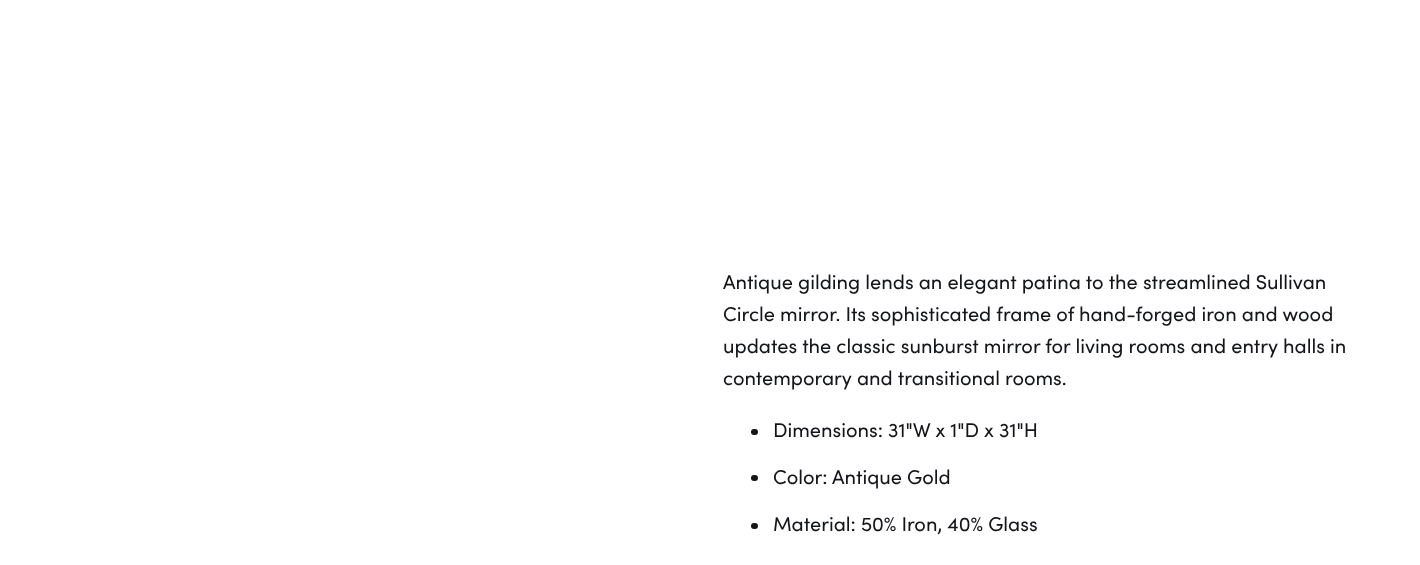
async function draw(canvas) {
  canvas.width = 1420
  canvas.height = 565
  const ctx = canvas.getContext('2d')
  ctx.miterLimit = 4
  ctx.fontKerning = 'normal'

  ctx.fillStyle = '#fff'
  ctx.fillRect(0, 0, 1420, 565)
  ctx.font = '20px Sofia'
  ctx.fillStyle = '#131519'
  ctx.fillText('Antique gilding lends an elegant patina to the streamlined Sullivan', 723, 289)
  ctx.fillText('Circle mirror. Its sophisticated frame of hand-forged iron and wood', 723, 321)
  ctx.fillText('updates the classic sunburst mirror for living rooms and entry halls in', 723, 353)
  ctx.fillText('contemporary and transitional rooms.', 723, 385)
  ctx.beginPath()
  ctx.roundRect(751, 429, 7, 6, 3)
  ctx.fill()
  ctx.fillText('Dimensions: 31"W x 1"D x 31"H', 773, 437)
  ctx.beginPath()
  ctx.roundRect(751, 475, 7, 6, 3)
  ctx.fill()
  ctx.fillText('Color: Antique Gold', 773, 484)
  ctx.beginPath()
  ctx.roundRect(751, 523, 7, 6, 3)
  ctx.fill()
  ctx.fillText('Material: 50% Iron, 40% Glass', 773, 531)
}

draw(document.querySelector('canvas'))
